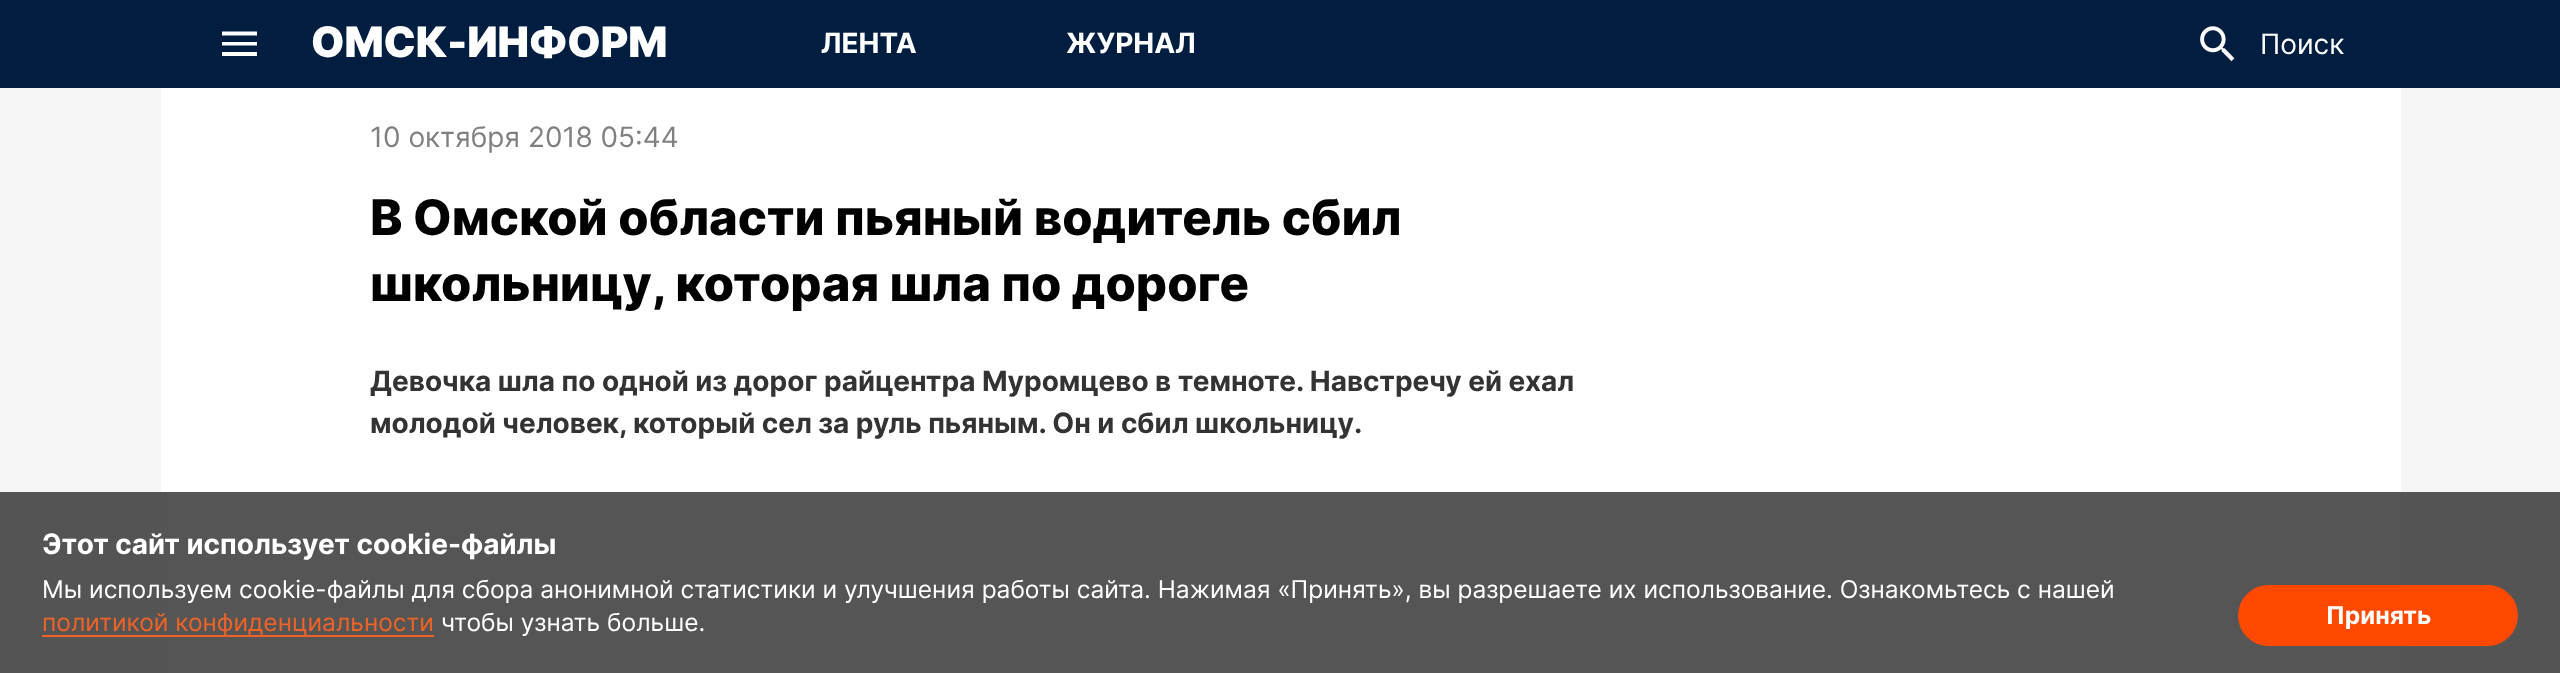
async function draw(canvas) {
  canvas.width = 2560
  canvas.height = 673
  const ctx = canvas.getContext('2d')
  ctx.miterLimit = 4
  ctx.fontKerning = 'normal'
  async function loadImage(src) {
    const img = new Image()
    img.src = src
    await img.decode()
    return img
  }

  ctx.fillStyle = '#f5f5f5'
  ctx.fillRect(0, 0, 2560, 673)
  ctx.fillStyle = '#011e41'
  ctx.fillRect(0, 0, 2560, 88)
  ctx.fillStyle = '#fff'
  ctx.beginPath()
  ctx.moveTo(222, 31.5)
  ctx.lineTo(257, 31.5)
  ctx.lineTo(257, 35.5)
  ctx.lineTo(222, 35.5)
  ctx.closePath()
  ctx.moveTo(222, 42)
  ctx.lineTo(257, 42)
  ctx.lineTo(257, 45.5)
  ctx.lineTo(222, 45.5)
  ctx.closePath()
  ctx.moveTo(222, 52)
  ctx.lineTo(257, 52)
  ctx.lineTo(257, 56)
  ctx.lineTo(222, 56)
  ctx.closePath()
  ctx.fill()
  ctx.font = '900 42px Inter'
  ctx.fillText('ОМСК-ИНФОРМ', 311, 57)
  ctx.font = 'bold 28px Inter'
  ctx.fillText('ЛЕНТА', 821, 53)
  ctx.fillText('ЖУРНАЛ', 1066, 53)
  ctx.drawImage(await loadImage('image0.png'), 2200, 26, 35, 35)
  ctx.font = '28px Inter'
  ctx.fillText('Поиск', 2260, 54)
  ctx.fillRect(161, 88, 2240, 585)
  ctx.fillStyle = '#808080'
  ctx.fillText('10 октября 2018 05:44', 370, 147)
  ctx.font = '800 49px Inter'
  ctx.fillStyle = '#000'
  ctx.fillText('В Омской области пьяный водитель сбил', 370, 235)
  ctx.fillText('школьницу, которая шла по дороге', 370, 301)
  ctx.font = 'bold 28px Inter'
  ctx.fillStyle = '#333'
  ctx.fillText('Девочка шла по одной из дорог райцентра Муромцево в темноте. Навстречу ей ехал', 370, 391)
  ctx.fillText('молодой человек, который сел за руль пьяным. Он и сбил школьницу.', 370, 433)
  ctx.fillStyle = '#424242e6'
  ctx.fillRect(0, 492, 2560, 181)
  ctx.fillStyle = '#fff'
  ctx.fillText('Этот сайт использует cookie-файлы', 42, 554)
  ctx.font = '24.5px Inter'
  ctx.fillText('Мы используем cookie-файлы для сбора анонимной статистики и улучшения работы сайта. Нажимая «Принять», вы разрешаете их использование. Ознакомьтесь с нашей', 42, 598)
  ctx.fillStyle = '#ef6327'
  ctx.fillRect(42, 635, 392, 2)
  ctx.fillText('политикой конфиденциальности', 42, 631)
  ctx.fillStyle = '#fff'
  ctx.fillText('чтобы узнать больше.', 441, 631)
  ctx.fillStyle = '#ff4900'
  ctx.beginPath()
  ctx.roundRect(2238, 585, 280, 61, 30.5)
  ctx.fill()
  ctx.font = 'bold 24.5px Inter'
  ctx.fillStyle = '#fff'
  ctx.fillText('Принять', 2326, 624)
}

draw(document.querySelector('canvas'))
